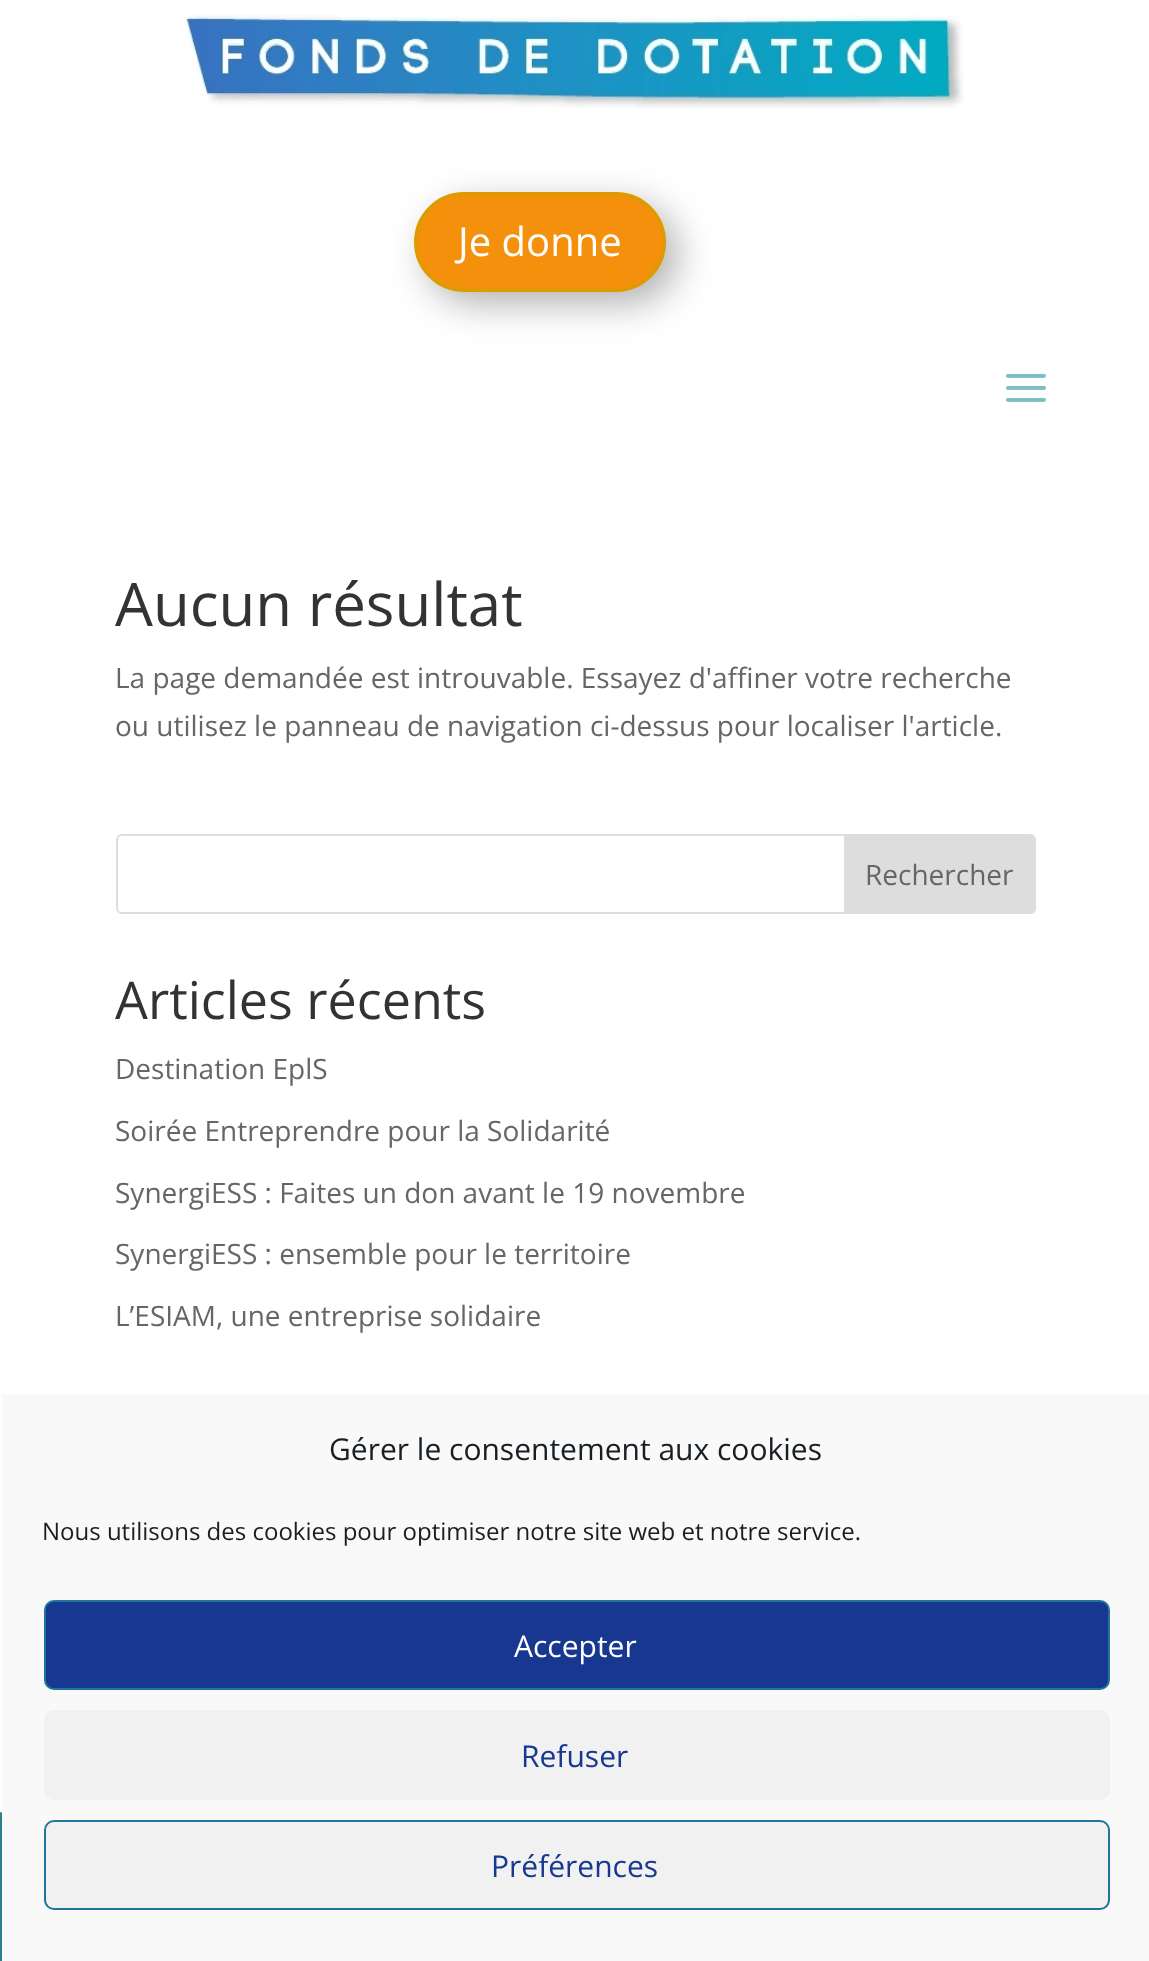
async function draw(canvas) {
  canvas.width = 1149
  canvas.height = 1961
  const ctx = canvas.getContext('2d')
  ctx.miterLimit = 4
  ctx.fontKerning = 'normal'
  async function loadImage(src) {
    const img = new Image()
    img.src = src
    await img.decode()
    return img
  }

  ctx.fillStyle = '#fff'
  ctx.fillRect(0, 0, 1149, 1961)
  ctx.drawImage(await loadImage('image0.png'), 184, 14, 780, 95)
  ctx.fillStyle = '#0000004d'
  ctx.filter = 'blur(18px)'
  ctx.beginPath()
  ctx.roundRect(426, 204, 252, 100, 50)
  ctx.fill()
  ctx.filter = 'none'
  ctx.fillStyle = '#f5900c'
  ctx.beginPath()
  ctx.roundRect(416, 194, 248, 96, 48)
  ctx.fill()
  ctx.strokeStyle = '#e09900'
  ctx.lineWidth = 4
  ctx.stroke()
  ctx.font = '40px Open Sans'
  ctx.fillStyle = '#fff'
  ctx.fillText('Je donne', 458, 256)
  ctx.drawImage(await loadImage('image1.png'), 1006, 373, 40, 29)
  ctx.font = '60px Open Sans'
  ctx.fillStyle = '#333'
  ctx.fillText('Aucun résultat', 115, 626)
  ctx.font = '28px Open Sans'
  ctx.fillStyle = '#666'
  ctx.fillText('La page demandée est introuvable. Essayez d\'affiner votre recherche', 115, 688)
  ctx.fillText('ou utilisez le panneau de navigation ci-dessus pour localiser l\'article.', 115, 736)
  ctx.beginPath()
  ctx.roundRect(117, 835, 918, 78, 5)
  ctx.strokeStyle = '#ddd'
  ctx.lineWidth = 2
  ctx.stroke()
  ctx.fillStyle = '#ddd'
  ctx.beginPath()
  ctx.roundRect(845, 835, 190, 78, [0, 5, 5, 0])
  ctx.fill()
  ctx.stroke()
  ctx.fillStyle = '#666'
  ctx.fillText('Rechercher', 865, 885)
  ctx.font = '52px Open Sans'
  ctx.fillStyle = '#333'
  ctx.fillText('Articles récents', 115, 1019)
  ctx.font = '28px Open Sans'
  ctx.fillStyle = '#666'
  ctx.fillText('Destination EplS', 115, 1079)
  ctx.fillText('Soirée Entreprendre pour la Solidarité', 115, 1141)
  ctx.fillText('SynergiESS : Faites un don avant le 19 novembre', 115, 1203)
  ctx.fillText('SynergiESS : ensemble pour le territoire', 115, 1264)
  ctx.fillText('L’ESIAM, une entreprise solidaire', 115, 1326)
  ctx.fillStyle = '#2b8090'
  ctx.fillRect(0, 1812, 2, 149)
  ctx.fillStyle = '#fff'
  ctx.beginPath()
  ctx.moveTo(140, 1821)
  ctx.lineTo(218, 1794)
  ctx.lineTo(289, 1813)
  ctx.lineTo(370, 1780)
  ctx.lineTo(455, 1795)
  ctx.lineTo(524, 1772)
  ctx.lineTo(598, 1799)
  ctx.lineTo(667, 1782)
  ctx.lineTo(733, 1740)
  ctx.lineTo(821, 1754)
  ctx.lineTo(896, 1710)
  ctx.lineTo(956, 1731)
  ctx.lineTo(1019, 1696)
  ctx.lineTo(1091, 1696)
  ctx.lineTo(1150, 1638)
  ctx.lineTo(0, 1638)
  ctx.lineTo(0, 1812)
  ctx.lineTo(54, 1827)
  ctx.closePath()
  ctx.fill()
  ctx.fillStyle = '#f9f9f9'
  ctx.fillRect(2, 1394, 1147, 567)
  ctx.font = '30px Open Sans'
  ctx.fillStyle = '#191e23'
  ctx.fillText('Gérer le consentement aux cookies', 329, 1460)
  ctx.font = '24px Open Sans'
  ctx.fillText('Nous utilisons des cookies pour optimiser notre site web et notre service.', 42, 1540)
  ctx.fillStyle = '#173791'
  ctx.beginPath()
  ctx.roundRect(45, 1601, 1064, 88, 9)
  ctx.fill()
  ctx.strokeStyle = '#21759b'
  ctx.stroke()
  ctx.font = '30px Open Sans'
  ctx.fillStyle = '#fff'
  ctx.fillText('Accepter', 514, 1657)
  ctx.fillStyle = '#f1f1f1'
  ctx.beginPath()
  ctx.roundRect(44, 1710, 1066, 90, 10)
  ctx.fill()
  ctx.fillStyle = '#173791'
  ctx.fillText('Refuser', 521, 1767)
  ctx.fillStyle = '#f1f1f1'
  ctx.beginPath()
  ctx.roundRect(45, 1821, 1064, 88, 9)
  ctx.fill()
  ctx.stroke()
  ctx.fillStyle = '#173791'
  ctx.fillText('Préférences', 491, 1877)
}

draw(document.querySelector('canvas'))
